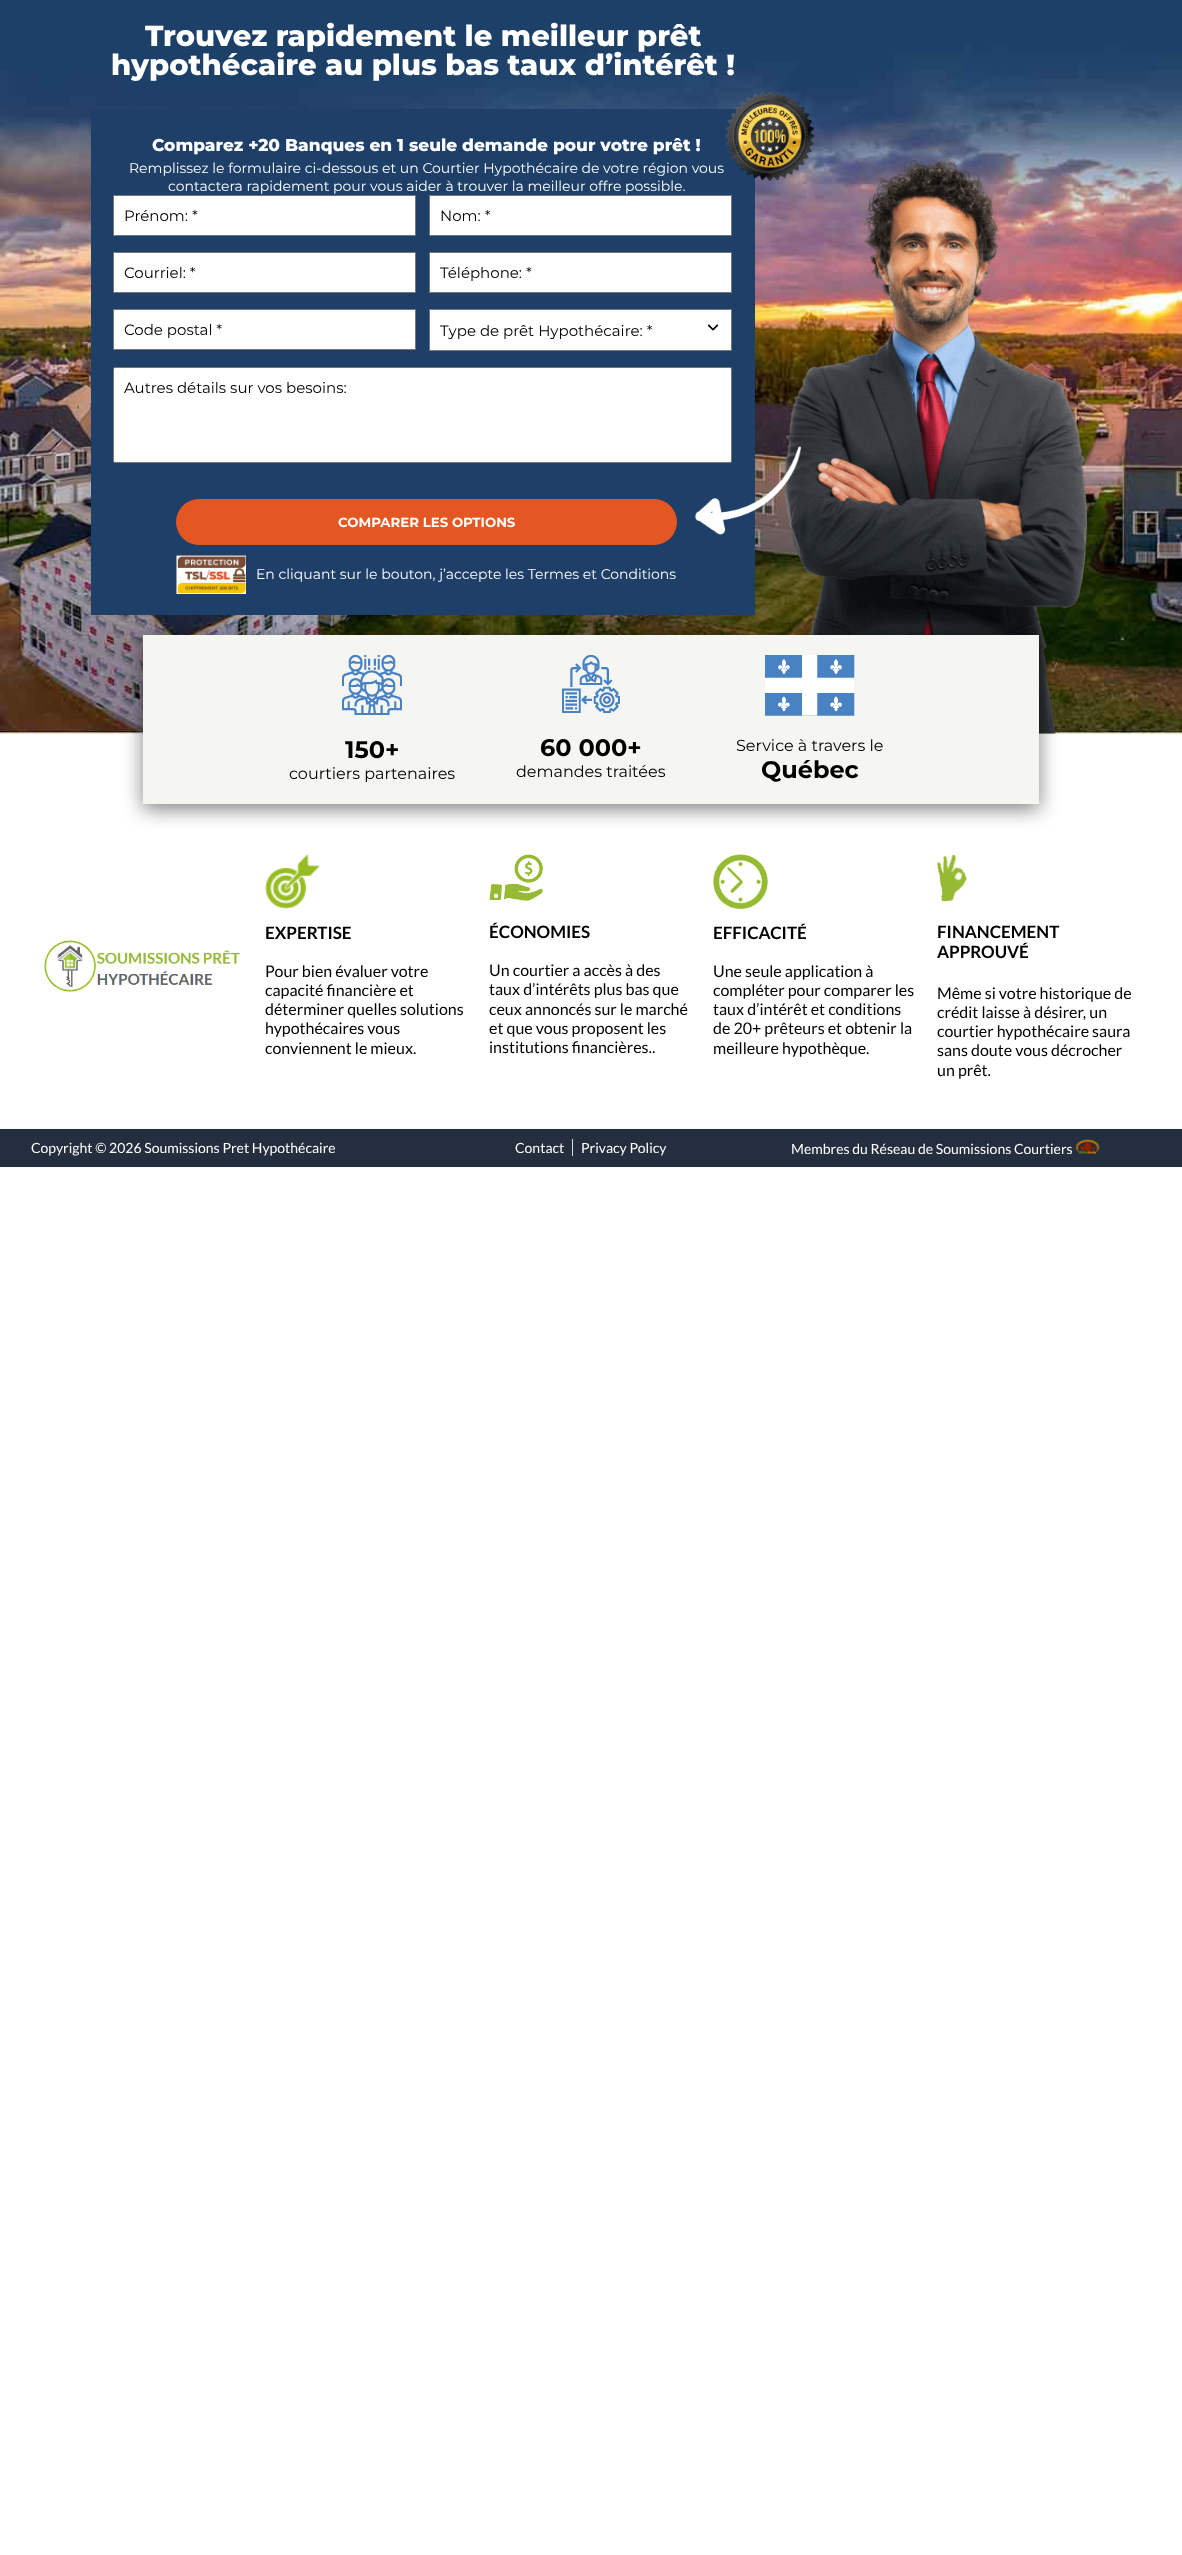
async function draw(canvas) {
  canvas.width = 1182
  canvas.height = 2555
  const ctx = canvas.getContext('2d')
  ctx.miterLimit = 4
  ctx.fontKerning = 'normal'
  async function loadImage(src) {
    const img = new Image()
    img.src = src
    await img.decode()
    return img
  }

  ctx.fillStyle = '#fff'
  ctx.fillRect(0, 0, 1182, 2555)
  ctx.drawImage(await loadImage('image0.png'), 0, 0, 1182, 734)
  ctx.font = '800 29px Montserrat'
  ctx.fillText('Trouvez rapidement le meilleur prêt', 145, 46)
  ctx.fillText('hypothécaire au plus bas taux d’intérêt !', 111, 75)
  ctx.fillStyle = '#1d3f68'
  ctx.fillRect(91, 109, 664, 506)
  ctx.font = '800 17px Montserrat'
  ctx.fillStyle = '#fff'
  ctx.fillText('Comparez +20 Banques en 1 seule demande pour votre prêt !', 152, 151)
  ctx.font = '14px Montserrat'
  ctx.fillText('Remplissez le formulaire ci-dessous et un Courtier Hypothécaire de votre région vous', 129, 173)
  ctx.fillText('contactera rapidement pour vous aider à trouver la meilleur offre possible.', 168, 191)
  ctx.beginPath()
  ctx.rect(113.5, 195.5, 302, 40)
  ctx.fill()
  ctx.strokeStyle = '#767676'
  ctx.stroke()
  ctx.font = '15px Montserrat'
  ctx.fillStyle = '#000'
  ctx.fillText('Prénom: *', 124, 221)
  ctx.fillStyle = '#fff'
  ctx.beginPath()
  ctx.rect(429.5, 195.5, 302, 40)
  ctx.fill()
  ctx.stroke()
  ctx.fillStyle = '#000'
  ctx.fillText('Nom: *', 440, 221)
  ctx.fillStyle = '#fff'
  ctx.beginPath()
  ctx.rect(113.5, 252.5, 302, 40)
  ctx.fill()
  ctx.stroke()
  ctx.fillStyle = '#000'
  ctx.fillText('Courriel: *', 124, 278)
  ctx.fillStyle = '#fff'
  ctx.beginPath()
  ctx.rect(429.5, 252.5, 302, 40)
  ctx.fill()
  ctx.stroke()
  ctx.fillStyle = '#000'
  ctx.fillText('Téléphone: *', 440, 278)
  ctx.fillStyle = '#fff'
  ctx.beginPath()
  ctx.rect(113.5, 309.5, 302, 40)
  ctx.fill()
  ctx.stroke()
  ctx.fillStyle = '#000'
  ctx.fillText('Code postal *', 124, 335)
  ctx.fillStyle = '#fff'
  ctx.beginPath()
  ctx.rect(429.5, 309.5, 302, 41)
  ctx.fill()
  ctx.stroke()
  ctx.fillStyle = '#000'
  ctx.fillText('Type de prêt Hypothécaire: *', 440, 336)
  ctx.drawImage(await loadImage('image1.png'), 707, 324, 12, 7)
  ctx.fillStyle = '#fff'
  ctx.beginPath()
  ctx.roundRect(113.5, 367.5, 618, 95, 1.5)
  ctx.fill()
  ctx.stroke()
  ctx.fillStyle = '#000'
  ctx.fillText('Autres détails sur vos besoins:', 124, 393)
  ctx.fillStyle = '#e45622'
  ctx.beginPath()
  ctx.roundRect(176, 499, 501, 46, 23)
  ctx.fill()
  ctx.font = 'bold 13.3px Montserrat'
  ctx.fillStyle = '#fff'
  ctx.fillText('COMPARER LES OPTIONS', 338, 527)
  ctx.drawImage(await loadImage('image2.png'), 176, 555, 70, 39)
  ctx.font = '14px Montserrat'
  ctx.fillText('En cliquant sur le bouton, j’accepte les Termes et Conditions', 256, 579)
  ctx.drawImage(await loadImage('image3.png'), 725, 91, 90, 90)
  ctx.drawImage(await loadImage('image5.png'), 784, 158, 304, 577)
  ctx.drawImage(await loadImage('image4.png'), 695, 446, 106, 89)
  ctx.fillStyle = '#00000080'
  ctx.filter = 'blur(10px)'
  ctx.beginPath()
  ctx.rect(143, 640, 896, 169)
  ctx.fill()
  ctx.filter = 'none'
  ctx.fillStyle = '#f5f5f1'
  ctx.fillRect(143, 635, 896, 169)
  ctx.drawImage(await loadImage('image6.png'), 342, 655, 60, 60)
  ctx.font = 'bold 24px Montserrat'
  ctx.fillStyle = '#000'
  ctx.fillText('150+', 345, 758)
  ctx.font = '16px Montserrat'
  ctx.fillText('courtiers partenaires', 289, 779)
  ctx.drawImage(await loadImage('image7.png'), 562, 655, 58, 58)
  ctx.font = 'bold 24px Montserrat'
  ctx.fillText('60 000+', 540, 756)
  ctx.font = '16px Montserrat'
  ctx.fillText('demandes traitées', 516, 777)
  ctx.drawImage(await loadImage('image8.png'), 765, 655, 90, 61)
  ctx.fillText('Service à travers le', 736, 751)
  ctx.font = 'bold 24px Montserrat'
  ctx.fillText('Québec', 761, 778)
  ctx.drawImage(await loadImage('image9.png'), 44, 940, 196, 52)
  ctx.drawImage(await loadImage('image10.png'), 265, 854, 55, 55)
  ctx.font = 'bold 17px Lato'
  ctx.fillText('EXPERTISE', 265, 939)
  ctx.font = '16px Lato'
  ctx.fillText('Pour bien évaluer votre', 265, 977)
  ctx.fillText('capacité financière et', 265, 996)
  ctx.fillText('déterminer quelles solutions', 265, 1015)
  ctx.fillText('hypothécaires vous', 265, 1034)
  ctx.fillText('conviennent le mieux.', 265, 1054)
  ctx.drawImage(await loadImage('image11.png'), 489, 854, 54, 47)
  ctx.font = 'bold 17px Lato'
  ctx.fillText('ÉCONOMIES', 489, 938)
  ctx.font = '16px Lato'
  ctx.fillText('Un courtier a accès à des', 489, 976)
  ctx.fillText('taux d’intérêts plus bas que', 489, 995)
  ctx.fillText('ceux annoncés sur le marché', 489, 1015)
  ctx.fillText('et que vous proposent les', 489, 1034)
  ctx.fillText('institutions financières..', 489, 1053)
  ctx.drawImage(await loadImage('image12.png'), 713, 854, 55, 55)
  ctx.font = 'bold 17px Lato'
  ctx.fillText('EFFICACITÉ', 713, 939)
  ctx.font = '16px Lato'
  ctx.fillText('Une seule application à', 713, 977)
  ctx.fillText('compléter pour comparer les', 713, 996)
  ctx.fillText('taux d’intérêt et conditions', 713, 1015)
  ctx.fillText('de 20+ prêteurs et obtenir la', 713, 1034)
  ctx.fillText('meilleure hypothèque.', 713, 1054)
  ctx.drawImage(await loadImage('image13.png'), 937, 854, 30, 48)
  ctx.font = 'bold 17px Lato'
  ctx.fillText('FINANCEMENT', 937, 938)
  ctx.fillText('APPROUVÉ', 937, 958)
  ctx.font = '16px Lato'
  ctx.fillText('Même si votre historique de', 937, 999)
  ctx.fillText('crédit laisse à désirer, un', 937, 1018)
  ctx.fillText('courtier hypothécaire saura', 937, 1037)
  ctx.fillText('sans doute vous décrocher', 937, 1056)
  ctx.fillText('un prêt.', 937, 1076)
  ctx.fillStyle = '#252e3e'
  ctx.fillRect(0, 1129, 1182, 38)
  ctx.font = '14px Lato'
  ctx.fillStyle = '#fff'
  ctx.fillText('Copyright © 2026 Soumissions Pret Hypothécaire', 31, 1153)
  ctx.fillText('Contact', 515, 1153)
  ctx.fillStyle = '#ddd'
  ctx.fillRect(572, 1139, 1, 17)
  ctx.fillStyle = '#fff'
  ctx.fillText('Privacy Policy', 581, 1153)
  ctx.fillText('Membres du Réseau de Soumissions Courtiers', 791, 1154)
  ctx.drawImage(await loadImage('image14.png'), 1075, 1139, 25, 15)
}

draw(document.querySelector('canvas'))
